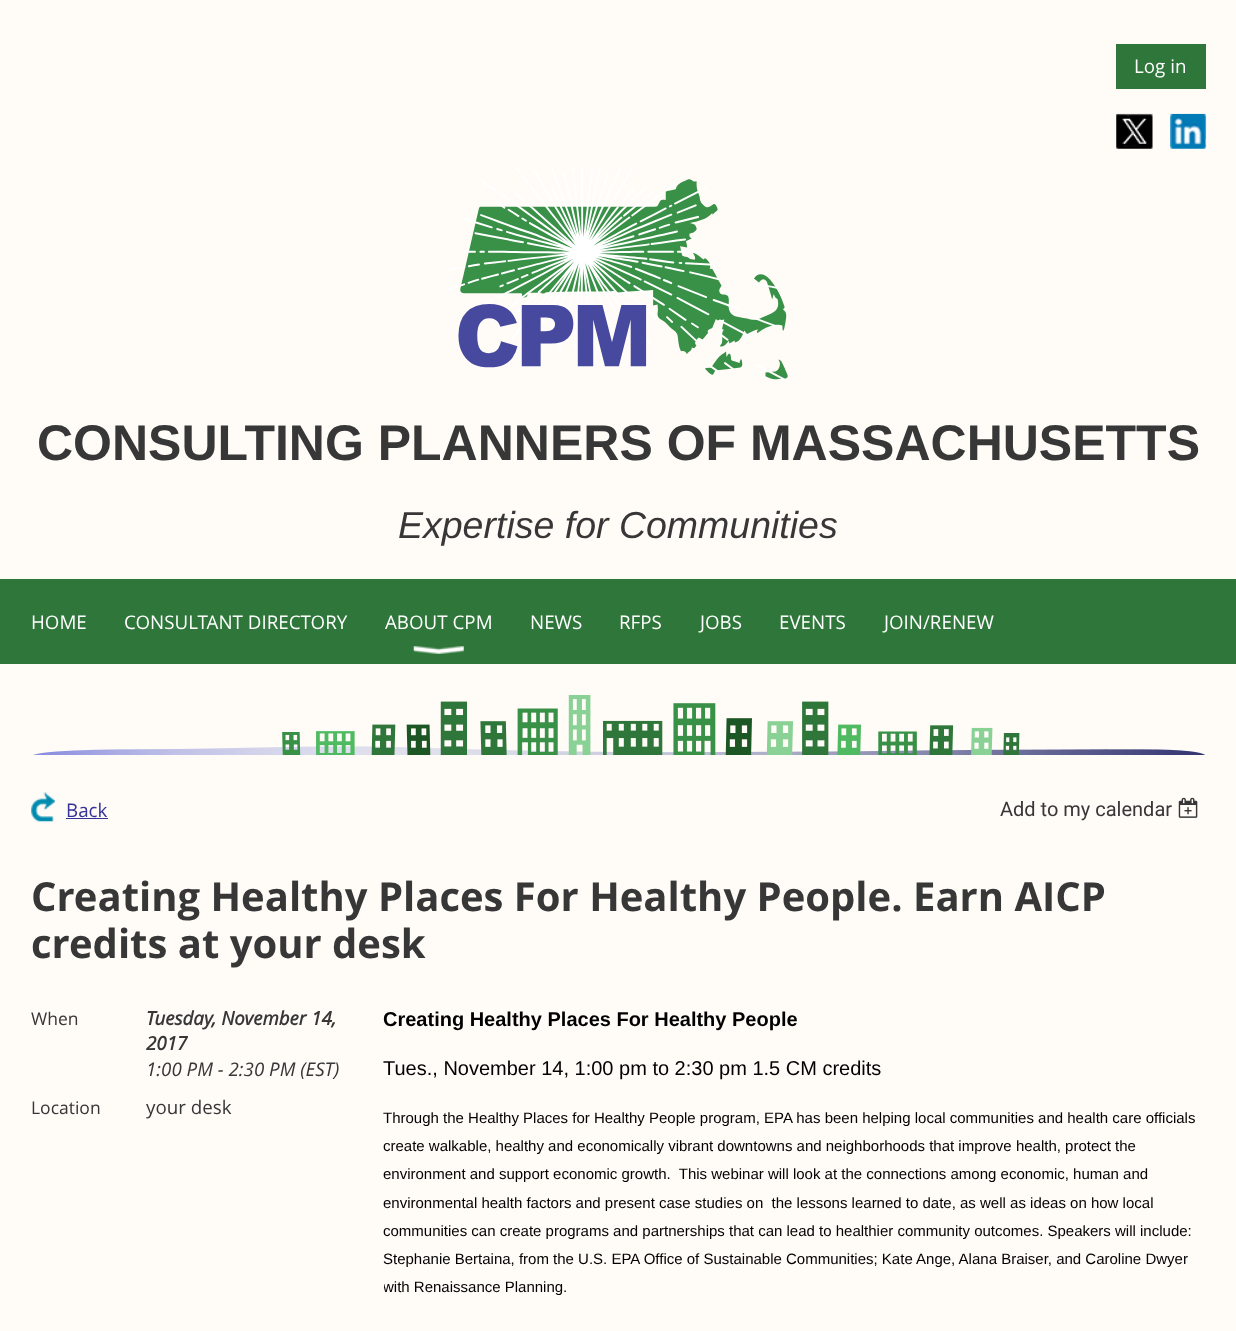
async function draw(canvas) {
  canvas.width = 1236
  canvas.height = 1331
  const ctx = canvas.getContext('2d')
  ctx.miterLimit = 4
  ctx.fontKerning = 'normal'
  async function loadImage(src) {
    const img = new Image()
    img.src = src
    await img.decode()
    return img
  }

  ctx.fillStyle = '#fffbf7'
  ctx.fillRect(0, 0, 1236, 1331)
  ctx.fillStyle = '#2e763a'
  ctx.fillRect(1116, 44, 90, 45)
  ctx.font = '18.75px Open Sans'
  ctx.fillStyle = '#fff'
  ctx.fillText('Log in', 1134, 73)
  ctx.drawImage(await loadImage('image0.png'), 1116, 113, 37, 36)
  ctx.drawImage(await loadImage('image1.png'), 1170, 113, 37, 36)
  ctx.drawImage(await loadImage('image2.png'), 447, 168, 342, 214)
  ctx.font = 'bold 50px Liberation Sans'
  ctx.fillStyle = '#373737'
  ctx.fillText('CONSULTING PLANNERS OF MASSACHUSETTS', 37, 460)
  ctx.font = 'italic 37.5px Liberation Sans'
  ctx.fillText('Expertise for Communities', 398, 538)
  ctx.fillStyle = '#2e763a'
  ctx.fillRect(0, 579, 1236, 85)
  ctx.font = '18.75px Open Sans'
  ctx.fillStyle = '#fff'
  ctx.fillText('HOME', 31, 629)
  ctx.fillText('CONSULTANT DIRECTORY', 124, 629)
  ctx.fillText('ABOUT CPM', 385, 629)
  ctx.drawImage(await loadImage('image3.png'), 413, 646, 51, 8)
  ctx.fillText('NEWS', 530, 629)
  ctx.fillText('RFPS', 619, 629)
  ctx.fillText('JOBS', 700, 629)
  ctx.fillText('EVENTS', 779, 629)
  ctx.fillText('JOIN/RENEW', 884, 629)
  ctx.drawImage(await loadImage('image4.png'), 33, 695, 1172, 60)
  ctx.drawImage(await loadImage('image5.png'), 31, 792, 24, 30)
  ctx.fillStyle = '#339'
  ctx.fillText('Back', 66, 817)
  ctx.fillRect(66, 818, 42, 1)
  ctx.font = '20px Roboto'
  ctx.fillStyle = '#373737'
  ctx.fillText('Add to my calendar', 1000, 816)
  ctx.drawImage(await loadImage('image6.png'), 1178, 797, 20, 21)
  ctx.font = 'bold 40px Open Sans'
  ctx.fillText('Creating Healthy Places For Healthy People. Earn AICP', 31, 911)
  ctx.fillText('credits at your desk', 31, 958)
  ctx.font = '17.5px Open Sans'
  ctx.fillText('When', 31, 1025)
  ctx.font = 'italic bold 18.75px Open Sans'
  ctx.fillText('Tuesday, November 14,', 146, 1025)
  ctx.fillText('2017', 146, 1050)
  ctx.font = 'italic 18.75px Open Sans'
  ctx.fillText('1:00 PM - 2:30 PM (EST)', 146, 1076)
  ctx.font = '17.5px Open Sans'
  ctx.fillText('Location', 31, 1114)
  ctx.save()
  ctx.beginPath()
  ctx.rect(146, 1094, 200, 25)
  ctx.clip()
  ctx.font = '18.75px Open Sans'
  ctx.fillText('your desk', 146, 1114)
  ctx.restore()
  ctx.font = 'bold 20px Liberation Sans'
  ctx.fillStyle = '#000'
  ctx.fillText('Creating Healthy Places For Healthy People', 383, 1026)
  ctx.font = '20px Liberation Sans'
  ctx.fillText('Tues., November 14, 1:00 pm to 2:30 pm 1.5 CM credits', 383, 1075)
  ctx.font = '15px Liberation Sans'
  ctx.fillText('Through the Healthy Places for Healthy People program, EPA has been helping local communities and health care officials', 383, 1123)
  ctx.fillText('create walkable, healthy and economically vibrant downtowns and neighborhoods that improve health, protect the', 383, 1151)
  ctx.fillText('environment and support economic growth.  This webinar will look at the connections among economic, human and', 383, 1179)
  ctx.fillText('environmental health factors and present case studies on  the lessons learned to date, as well as ideas on how local', 383, 1208)
  ctx.fillText('communities can create programs and partnerships that can lead to healthier community outcomes. Speakers will include:', 383, 1236)
  ctx.fillText('Stephanie Bertaina, from the U.S. EPA Office of Sustainable Communities; Kate Ange, Alana Braiser, and Caroline Dwyer', 383, 1264)
  ctx.save()
  ctx.beginPath()
  ctx.rect(384, 1005, 822, 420)
  ctx.clip()
  ctx.fillText('with Renaissance Planning.', 383, 1292)
  ctx.restore()
}

draw(document.querySelector('canvas'))
